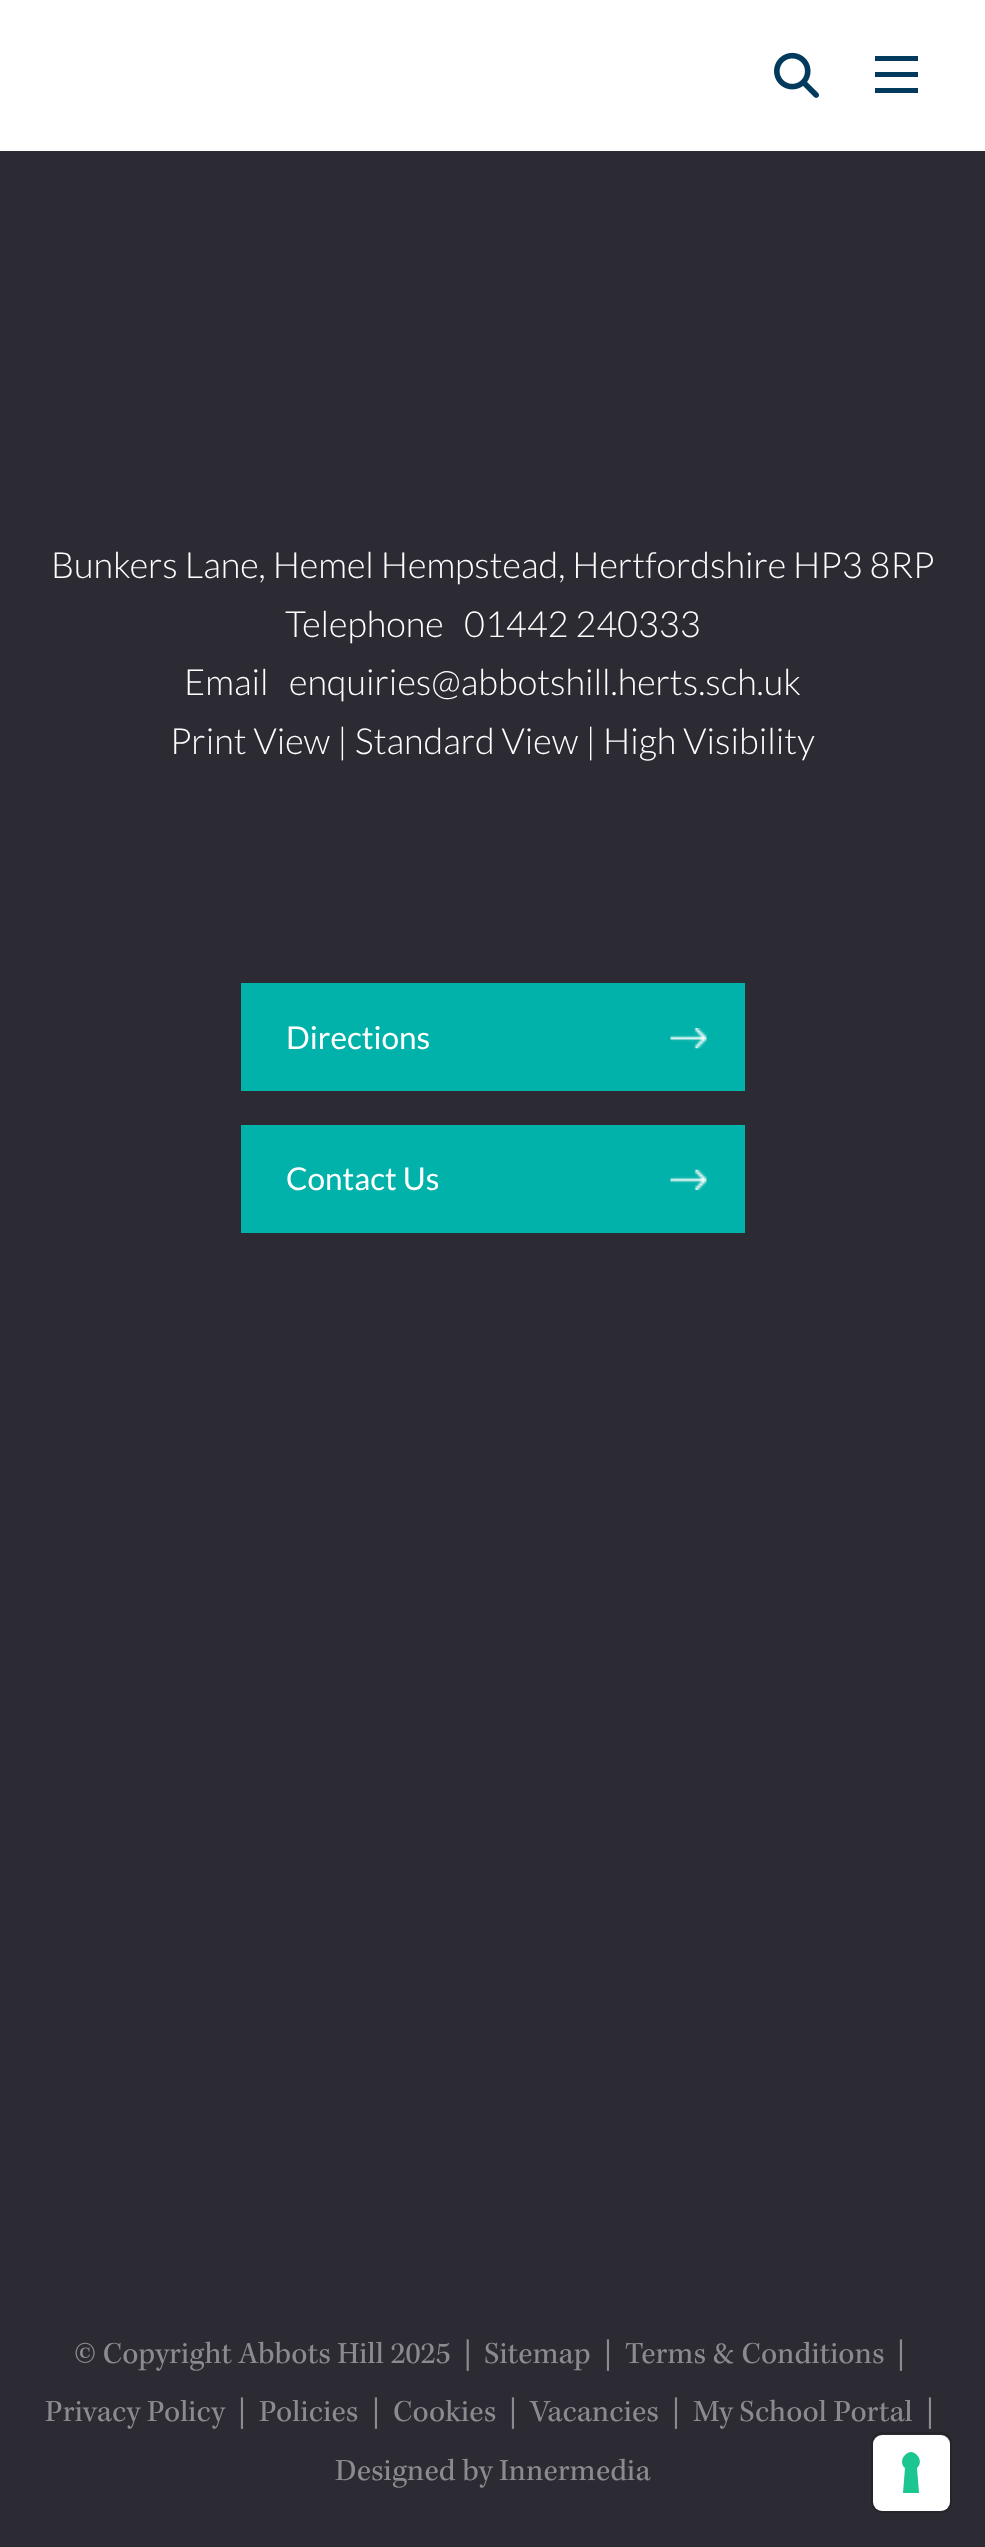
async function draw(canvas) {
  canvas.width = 985
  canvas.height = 2547
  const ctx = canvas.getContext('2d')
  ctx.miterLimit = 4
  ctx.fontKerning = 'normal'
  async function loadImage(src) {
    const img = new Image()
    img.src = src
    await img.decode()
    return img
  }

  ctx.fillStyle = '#2c2b33'
  ctx.fillRect(0, 0, 985, 2547)
  ctx.fillStyle = '#fff'
  ctx.fillRect(0, 0, 985, 151)
  ctx.drawImage(await loadImage('image0.png'), 774, 52, 45, 46)
  ctx.fillStyle = '#023a5d'
  ctx.fillRect(875, 56, 43, 5)
  ctx.fillRect(875, 72, 43, 5)
  ctx.fillRect(875, 88, 43, 5)
  ctx.font = '300 36px Lato'
  ctx.fillStyle = '#fff'
  ctx.fillText('Bunkers Lane, Hemel Hempstead, Hertfordshire HP3 8RP', 51, 578)
  ctx.fillText('Telephone', 285, 637)
  ctx.fillText('01442 240333', 464, 637)
  ctx.fillText('Email', 184, 695)
  ctx.fillText('enquiries@abbotshill.herts.sch.uk', 289, 695)
  ctx.fillText('Print View | Standard View | High Visibility', 170, 754)
  ctx.fillStyle = '#00b2a9'
  ctx.fillRect(241, 983, 504, 108)
  ctx.font = '31.5px Lato'
  ctx.fillStyle = '#fff'
  ctx.fillText('Directions', 286, 1049)
  ctx.drawImage(await loadImage('image1.png'), 670, 1028, 37, 21)
  ctx.fillStyle = '#00b2a9'
  ctx.fillRect(241, 1125, 504, 108)
  ctx.fillStyle = '#fff'
  ctx.fillText('Contact Us', 286, 1190)
  ctx.drawImage(await loadImage('image2.png'), 670, 1169, 37, 21)
  ctx.font = '31.5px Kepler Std'
  ctx.fillStyle = '#8b8a8f'
  ctx.fillText('© Copyright Abbots Hill 2025  |', 74, 2363)
  ctx.fillText('Sitemap', 484, 2363)
  ctx.fillText('|', 604, 2363)
  ctx.fillText('Terms & Conditions', 625, 2363)
  ctx.fillText('|', 897, 2363)
  ctx.fillText('Privacy Policy', 45, 2421)
  ctx.fillText('|', 238, 2421)
  ctx.fillText('Policies', 259, 2421)
  ctx.fillText('|', 372, 2421)
  ctx.fillText('Cookies', 393, 2421)
  ctx.fillText('|', 509, 2421)
  ctx.fillText('Vacancies', 530, 2421)
  ctx.fillText('|', 672, 2421)
  ctx.fillText('My School Portal', 693, 2421)
  ctx.fillText('|', 926, 2421)
  ctx.fillText('Designed by Innermedia', 335, 2480)
  ctx.beginPath()
  ctx.roundRect(872, 2433, 79, 79, 10)
  ctx.strokeStyle = '#25252b'
  ctx.lineWidth = 2
  ctx.stroke()
  ctx.fillStyle = '#fff'
  ctx.beginPath()
  ctx.roundRect(873, 2435, 77, 76, 9)
  ctx.fill()
  ctx.fillStyle = '#1cc691'
  ctx.beginPath()
  ctx.moveTo(911, 2452)
  ctx.bezierCurveTo(919, 2453, 923, 2463, 917, 2468)
  ctx.lineTo(919, 2493)
  ctx.lineTo(903, 2493)
  ctx.lineTo(905, 2468)
  ctx.bezierCurveTo(899, 2463, 903, 2453, 911, 2452)
  ctx.closePath()
  ctx.fill('evenodd')
}

draw(document.querySelector('canvas'))
